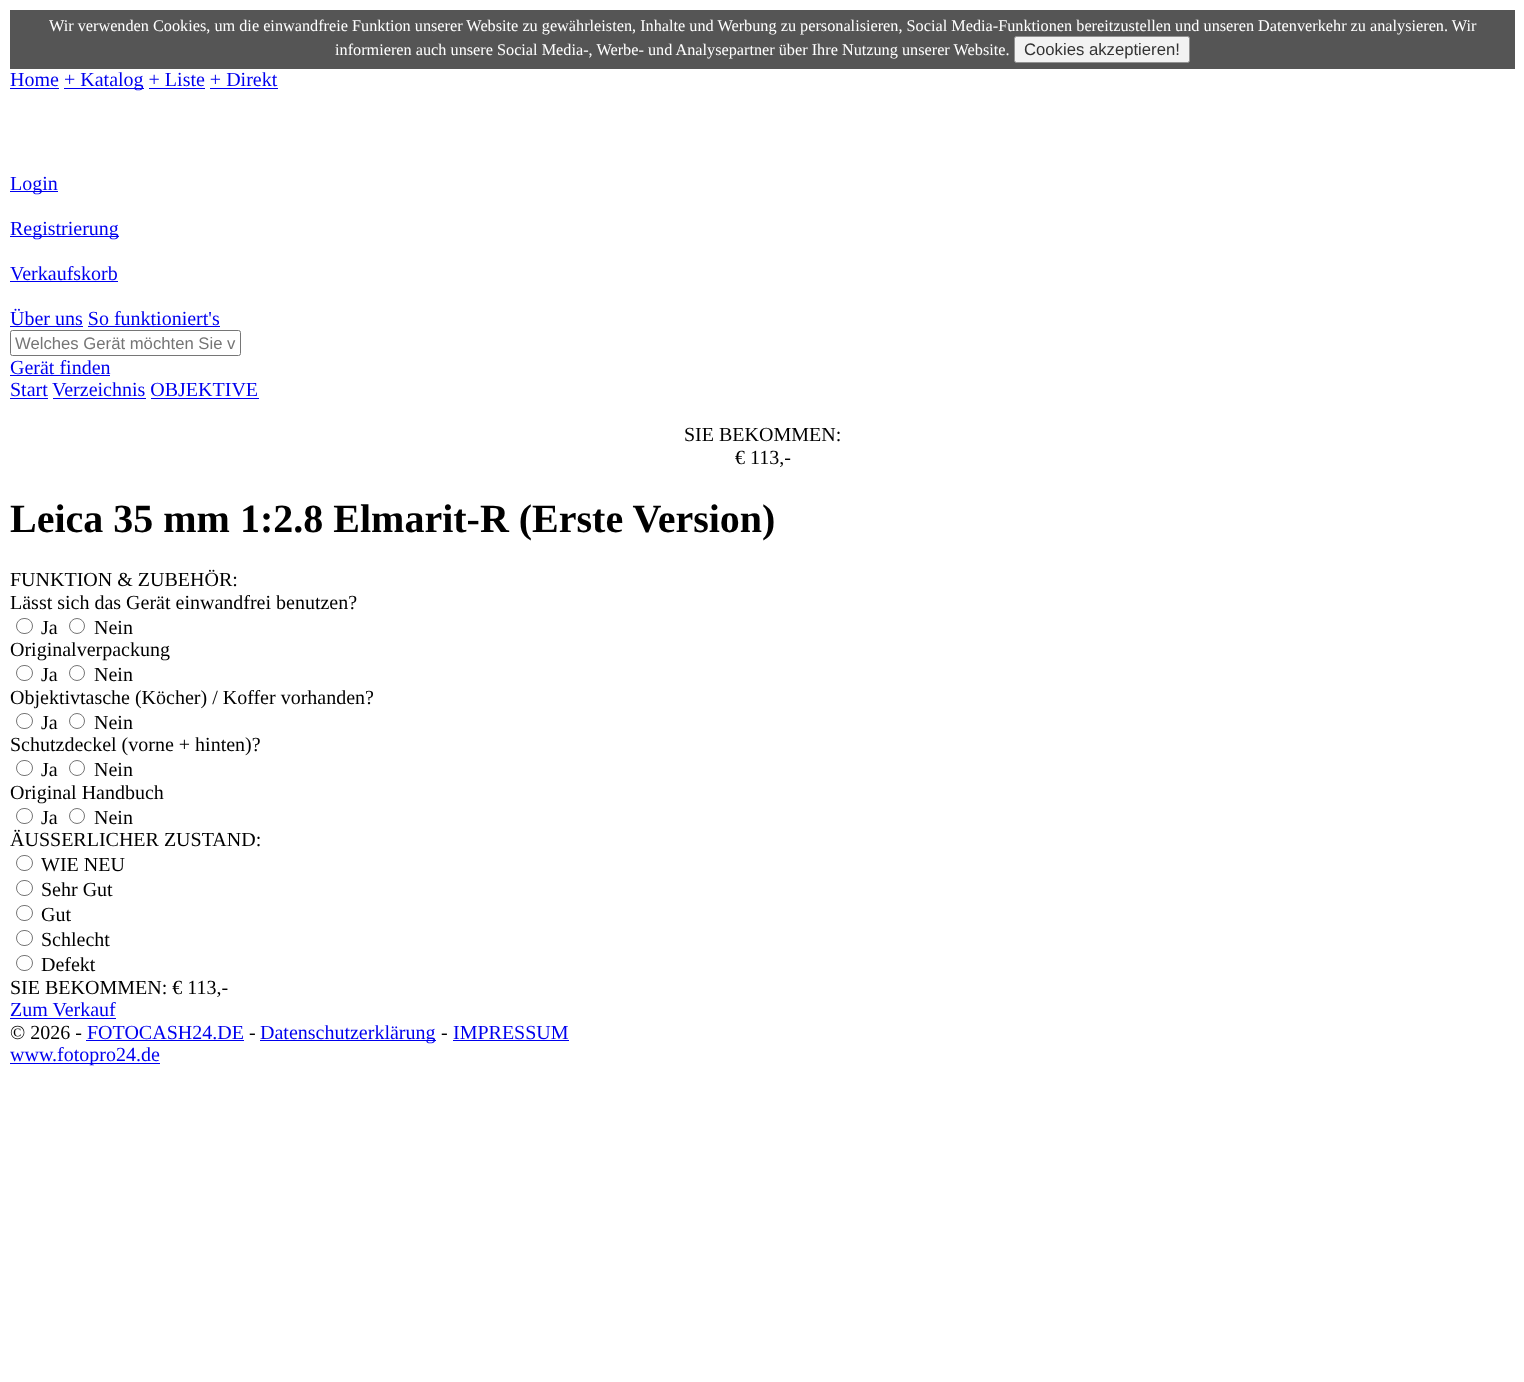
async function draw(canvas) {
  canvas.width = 1524
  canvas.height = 1382
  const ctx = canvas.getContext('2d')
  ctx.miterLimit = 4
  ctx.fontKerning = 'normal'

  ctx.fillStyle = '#fff'
  ctx.fillRect(0, 0, 1524, 1382)
  ctx.fillStyle = '#555'
  ctx.fillRect(10, 10, 1505, 59)
  ctx.font = '16.25px Liberation Serif'
  ctx.fillStyle = '#fff'
  ctx.fillText('Wir verwenden Cookies, um die einwandfreie Funktion unserer Website zu gewährleisten, Inhalte und Werbung zu personalisieren, Social Media-Funktionen bereitzustellen und unseren Datenverkehr zu analysieren. Wir', 49, 31)
  ctx.fillText('informieren auch unsere Social Media-, Werbe- und Analysepartner über Ihre Nutzung unserer Website.', 335, 55)
  ctx.fillStyle = '#f2f2f2'
  ctx.beginPath()
  ctx.roundRect(1014.5, 36.5, 175, 26, 2)
  ctx.fill()
  ctx.strokeStyle = '#919191'
  ctx.stroke()
  ctx.font = '16.7px Liberation Sans'
  ctx.fillStyle = '#333'
  ctx.fillText('Cookies akzeptieren!', 1024, 55)
  ctx.font = '20px Liberation Serif'
  ctx.fillStyle = '#00e'
  ctx.fillText('Home', 10, 86)
  ctx.fillRect(10, 88, 49, 1)
  ctx.fillRect(64, 88, 80, 1)
  ctx.fillText('+ Katalog + Liste + Direkt', 64, 86)
  ctx.fillRect(149, 88, 56, 1)
  ctx.fillRect(210, 88, 68, 1)
  ctx.fillRect(10, 191, 48, 1)
  ctx.fillText('Login', 10, 190)
  ctx.fillRect(10, 236, 109, 1)
  ctx.fillText('Registrierung', 10, 235)
  ctx.fillText('Verkaufskorb', 10, 280)
  ctx.fillRect(10, 281, 108, 1)
  ctx.fillText('Über uns So funktioniert\'s', 10, 325)
  ctx.fillRect(10, 326, 73, 1)
  ctx.fillRect(88, 326, 132, 1)
  ctx.beginPath()
  ctx.roundRect(10.5, 330.5, 230, 25, 2)
  ctx.strokeStyle = '#767676'
  ctx.stroke()
  ctx.font = '16.7px Liberation Sans'
  ctx.fillStyle = '#757575'
  ctx.fillText('Welches Gerät möchten Sie v', 15, 349)
  ctx.font = '20px Liberation Serif'
  ctx.fillStyle = '#00e'
  ctx.fillText('Gerät finden', 10, 374)
  ctx.fillRect(10, 375, 100, 1)
  ctx.fillText('Start', 10, 396)
  ctx.fillRect(10, 398, 38, 1)
  ctx.fillText('Verzeichnis OBJEKTIVE', 52, 396)
  ctx.fillRect(53, 398, 93, 1)
  ctx.fillRect(151, 398, 108, 1)
  ctx.fillStyle = '#000'
  ctx.fillText('SIE BEKOMMEN:', 684, 441)
  ctx.fillText('€ 113,-', 735, 464)
  ctx.font = 'bold 40px Liberation Serif'
  ctx.fillText('Leica 35 mm 1:2.8 Elmarit-R (Erste Version)', 10, 532)
  ctx.font = '20px Liberation Serif'
  ctx.fillText('FUNKTION & ZUBEHÖR:', 10, 586)
  ctx.fillText('Lässt sich das Gerät einwandfrei benutzen?', 10, 609)
  ctx.beginPath()
  ctx.roundRect(16.5, 618.5, 16, 15, 7.5)
  ctx.stroke()
  ctx.fillText('Ja', 41, 634)
  ctx.beginPath()
  ctx.arc(77, 626, 7.5, 0, 2 * Math.PI)
  ctx.stroke()
  ctx.fillText('Nein', 94, 634)
  ctx.fillText('Originalverpackung', 10, 656)
  ctx.beginPath()
  ctx.roundRect(16.5, 665.5, 16, 15, 7.5)
  ctx.stroke()
  ctx.fillText('Ja', 41, 681)
  ctx.beginPath()
  ctx.arc(77, 673, 7.5, 0, 2 * Math.PI)
  ctx.stroke()
  ctx.fillText('Nein', 94, 681)
  ctx.fillText('Objektivtasche (Köcher) / Koffer vorhanden?', 10, 704)
  ctx.beginPath()
  ctx.roundRect(16.5, 713.5, 16, 15, 7.5)
  ctx.stroke()
  ctx.fillText('Ja', 41, 729)
  ctx.beginPath()
  ctx.arc(77, 721, 7.5, 0, 2 * Math.PI)
  ctx.stroke()
  ctx.fillText('Nein', 94, 729)
  ctx.fillText('Schutzdeckel (vorne + hinten)?', 10, 751)
  ctx.beginPath()
  ctx.roundRect(16.5, 760.5, 16, 15, 7.5)
  ctx.stroke()
  ctx.fillText('Ja', 41, 776)
  ctx.beginPath()
  ctx.arc(77, 768, 7.5, 0, 2 * Math.PI)
  ctx.stroke()
  ctx.fillText('Nein', 94, 776)
  ctx.fillText('Original Handbuch', 10, 799)
  ctx.beginPath()
  ctx.roundRect(16.5, 808.5, 16, 15, 7.5)
  ctx.stroke()
  ctx.fillText('Ja', 41, 824)
  ctx.beginPath()
  ctx.arc(77, 816, 7.5, 0, 2 * Math.PI)
  ctx.stroke()
  ctx.fillText('Nein', 94, 824)
  ctx.fillText('ÄUSSERLICHER ZUSTAND:', 10, 846)
  ctx.beginPath()
  ctx.roundRect(16.5, 855.5, 16, 15, 7.5)
  ctx.stroke()
  ctx.fillText('WIE NEU', 41, 871)
  ctx.beginPath()
  ctx.roundRect(16.5, 880.5, 16, 15, 7.5)
  ctx.stroke()
  ctx.fillText('Sehr Gut', 41, 896)
  ctx.beginPath()
  ctx.roundRect(16.5, 905.5, 16, 15, 7.5)
  ctx.stroke()
  ctx.fillText('Gut', 41, 921)
  ctx.beginPath()
  ctx.roundRect(16.5, 930.5, 16, 15, 7.5)
  ctx.stroke()
  ctx.fillText('Schlecht', 41, 946)
  ctx.beginPath()
  ctx.roundRect(16.5, 955.5, 16, 15, 7.5)
  ctx.stroke()
  ctx.fillText('Defekt', 41, 971)
  ctx.fillText('SIE BEKOMMEN: € 113,-', 10, 994)
  ctx.fillStyle = '#00e'
  ctx.fillText('Zum Verkauf', 10, 1016)
  ctx.fillRect(10, 1018, 106, 1)
  ctx.fillStyle = '#000'
  ctx.fillText('© 2026 -', 10, 1039)
  ctx.fillStyle = '#00e'
  ctx.fillText('FOTOCASH24.DE', 87, 1039)
  ctx.fillRect(86, 1040, 158, 1)
  ctx.fillStyle = '#000'
  ctx.fillText('-', 249, 1039)
  ctx.fillStyle = '#00e'
  ctx.fillRect(260, 1040, 176, 1)
  ctx.fillText('Datenschutzerklärung', 260, 1039)
  ctx.fillStyle = '#000'
  ctx.fillText('-', 441, 1039)
  ctx.fillStyle = '#00e'
  ctx.fillText('IMPRESSUM', 453, 1039)
  ctx.fillRect(453, 1040, 116, 1)
  ctx.fillRect(10, 1063, 150, 1)
  ctx.fillText('www.fotopro24.de', 10, 1061)
}

draw(document.querySelector('canvas'))
